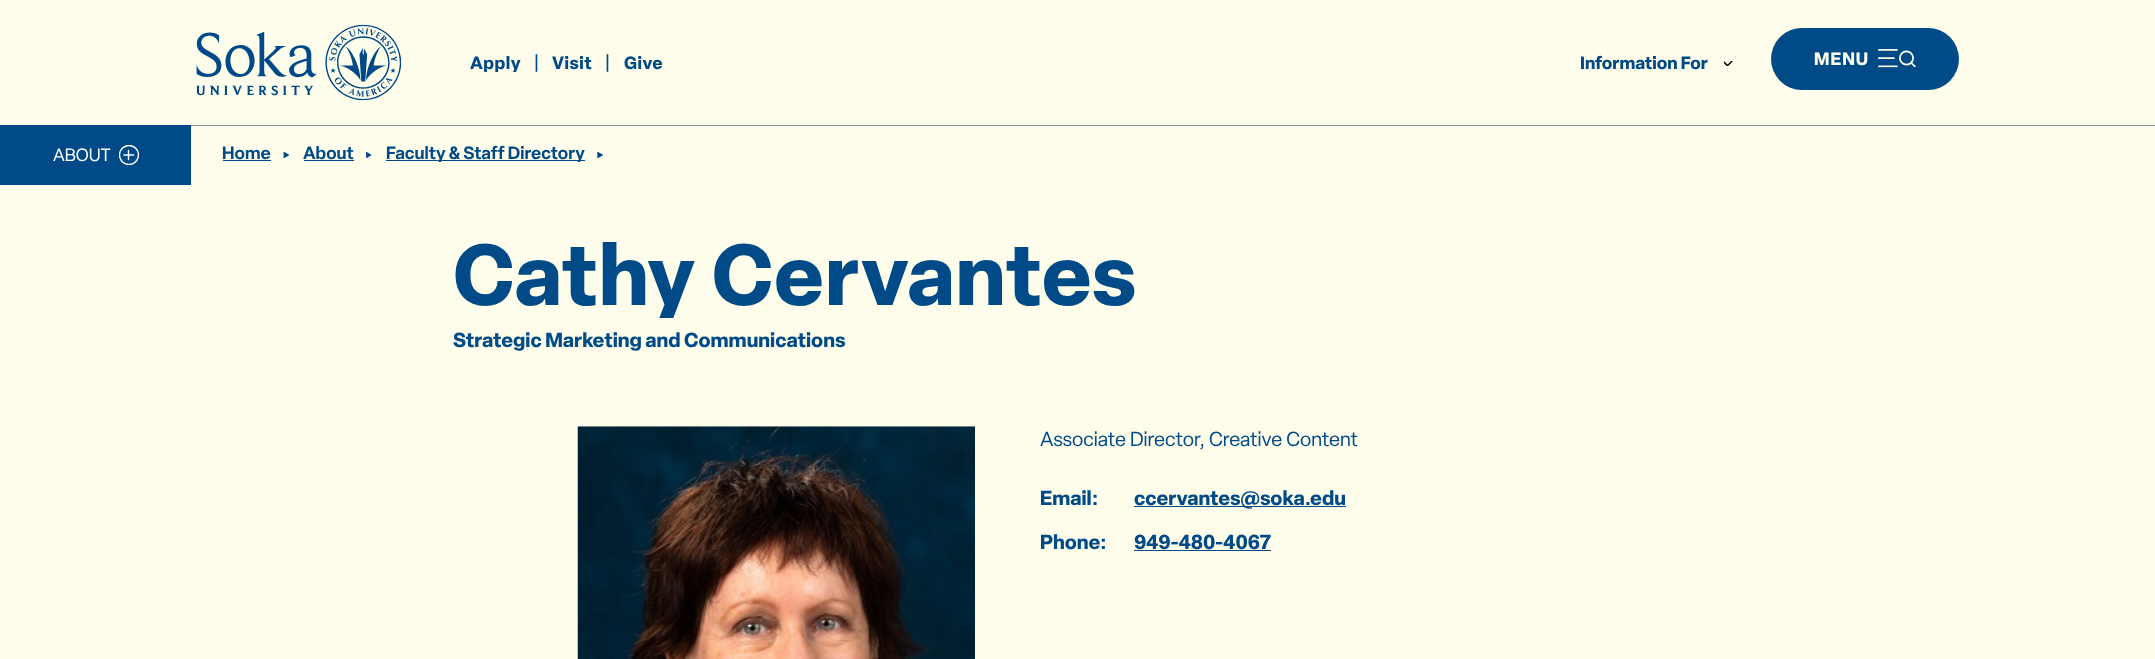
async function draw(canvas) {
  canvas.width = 2155
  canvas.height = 659
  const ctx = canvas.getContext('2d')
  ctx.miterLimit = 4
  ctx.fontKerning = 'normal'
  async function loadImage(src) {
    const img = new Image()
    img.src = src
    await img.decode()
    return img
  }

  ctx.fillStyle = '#fefdeb'
  ctx.fillRect(0, 0, 2155, 659)
  ctx.drawImage(await loadImage('image0.png'), 196, 24, 205, 77)
  ctx.letterSpacing = '0.5px'
  ctx.font = 'bold 17.5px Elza'
  ctx.fillStyle = '#004b87'
  ctx.fillText('Apply', 470, 69)
  ctx.letterSpacing = '0px'
  ctx.font = '20px Elza'
  ctx.fillText('|', 533, 69)
  ctx.letterSpacing = '0.5px'
  ctx.font = 'bold 17.5px Elza'
  ctx.fillText('Visit', 552, 69)
  ctx.letterSpacing = '0px'
  ctx.font = '20px Elza'
  ctx.fillText('|', 604, 69)
  ctx.letterSpacing = '0.5px'
  ctx.font = 'bold 17.5px Elza'
  ctx.fillText('Give', 624, 69)
  ctx.letterSpacing = '0px'
  ctx.fillText('Information For', 1580, 69)
  ctx.drawImage(await loadImage('image1.png'), 1724, 61, 9, 5)
  ctx.beginPath()
  ctx.roundRect(1771, 28, 188, 62, 31)
  ctx.fill()
  ctx.letterSpacing = '1px'
  ctx.fillStyle = '#fefdeb'
  ctx.fillText('MENU', 1814, 65)
  ctx.drawImage(await loadImage('image2.png'), 1878, 49, 38, 19)
  ctx.fillStyle = '#004b87'
  ctx.fillRect(0, 125, 191, 60)
  ctx.letterSpacing = '0px'
  ctx.font = '17.5px Elza'
  ctx.fillStyle = '#fff'
  ctx.fillText('ABOUT', 53, 161)
  ctx.save()
  ctx.beginPath()
  ctx.rect(119, 145, 20, 20)
  ctx.clip()
  ctx.beginPath()
  ctx.arc(129, 155, 9.5, 0, 2 * Math.PI)
  ctx.strokeStyle = '#fff'
  ctx.lineWidth = 1.4
  ctx.stroke()
  ctx.restore()
  ctx.beginPath()
  ctx.moveTo(128.5, 159.5)
  ctx.lineTo(128.5, 150.5)
  ctx.moveTo(124, 155)
  ctx.lineTo(133.5, 155)
  ctx.strokeStyle = '#fff'
  ctx.lineWidth = 1.4
  ctx.lineCap = 'round'
  ctx.stroke()
  ctx.fillStyle = '#818d94'
  ctx.fillRect(191, 125, 1964, 1)
  ctx.font = '600 17.5px Elza'
  ctx.fillStyle = '#004b87'
  ctx.fillText('Home', 222, 159)
  ctx.fillRect(223, 160, 48, 1)
  ctx.drawImage(await loadImage('image3.png'), 283, 152, 6, 6)
  ctx.fillText('About', 303, 159)
  ctx.fillRect(304, 160, 50, 1)
  ctx.drawImage(await loadImage('image4.png'), 366, 152, 5, 6)
  ctx.fillRect(386, 160, 199, 1)
  ctx.fillText('Faculty & Staff Directory', 386, 159)
  ctx.drawImage(await loadImage('image5.png'), 597, 152, 6, 6)
  ctx.save()
  ctx.beginPath()
  ctx.rect(453, 229, 1250, 89)
  ctx.clip()
  ctx.letterSpacing = '0.8px'
  ctx.font = 'bold 85px Elza'
  ctx.fillText('Cathy Cervantes', 453, 305)
  ctx.restore()
  ctx.font = 'bold 20px Elza'
  ctx.fillText('Strategic Marketing and Communications', 453, 347)
  ctx.drawImage(await loadImage('image6.png'), 577, 426, 398, 233)
  ctx.font = '20px Elza'
  ctx.fillText('Associate Director, Creative Content', 1040, 446)
  ctx.font = 'bold 20px Elza'
  ctx.fillText('Email:', 1040, 505)
  ctx.fillRect(1134, 506, 212, 1)
  ctx.fillText('ccervantes@soka.edu', 1134, 505)
  ctx.fillText('Phone', 1040, 549)
  ctx.fillText(':', 1100, 549)
  ctx.fillText('949-480-4067', 1134, 549)
  ctx.fillRect(1134, 550, 137, 1)
}

draw(document.querySelector('canvas'))
